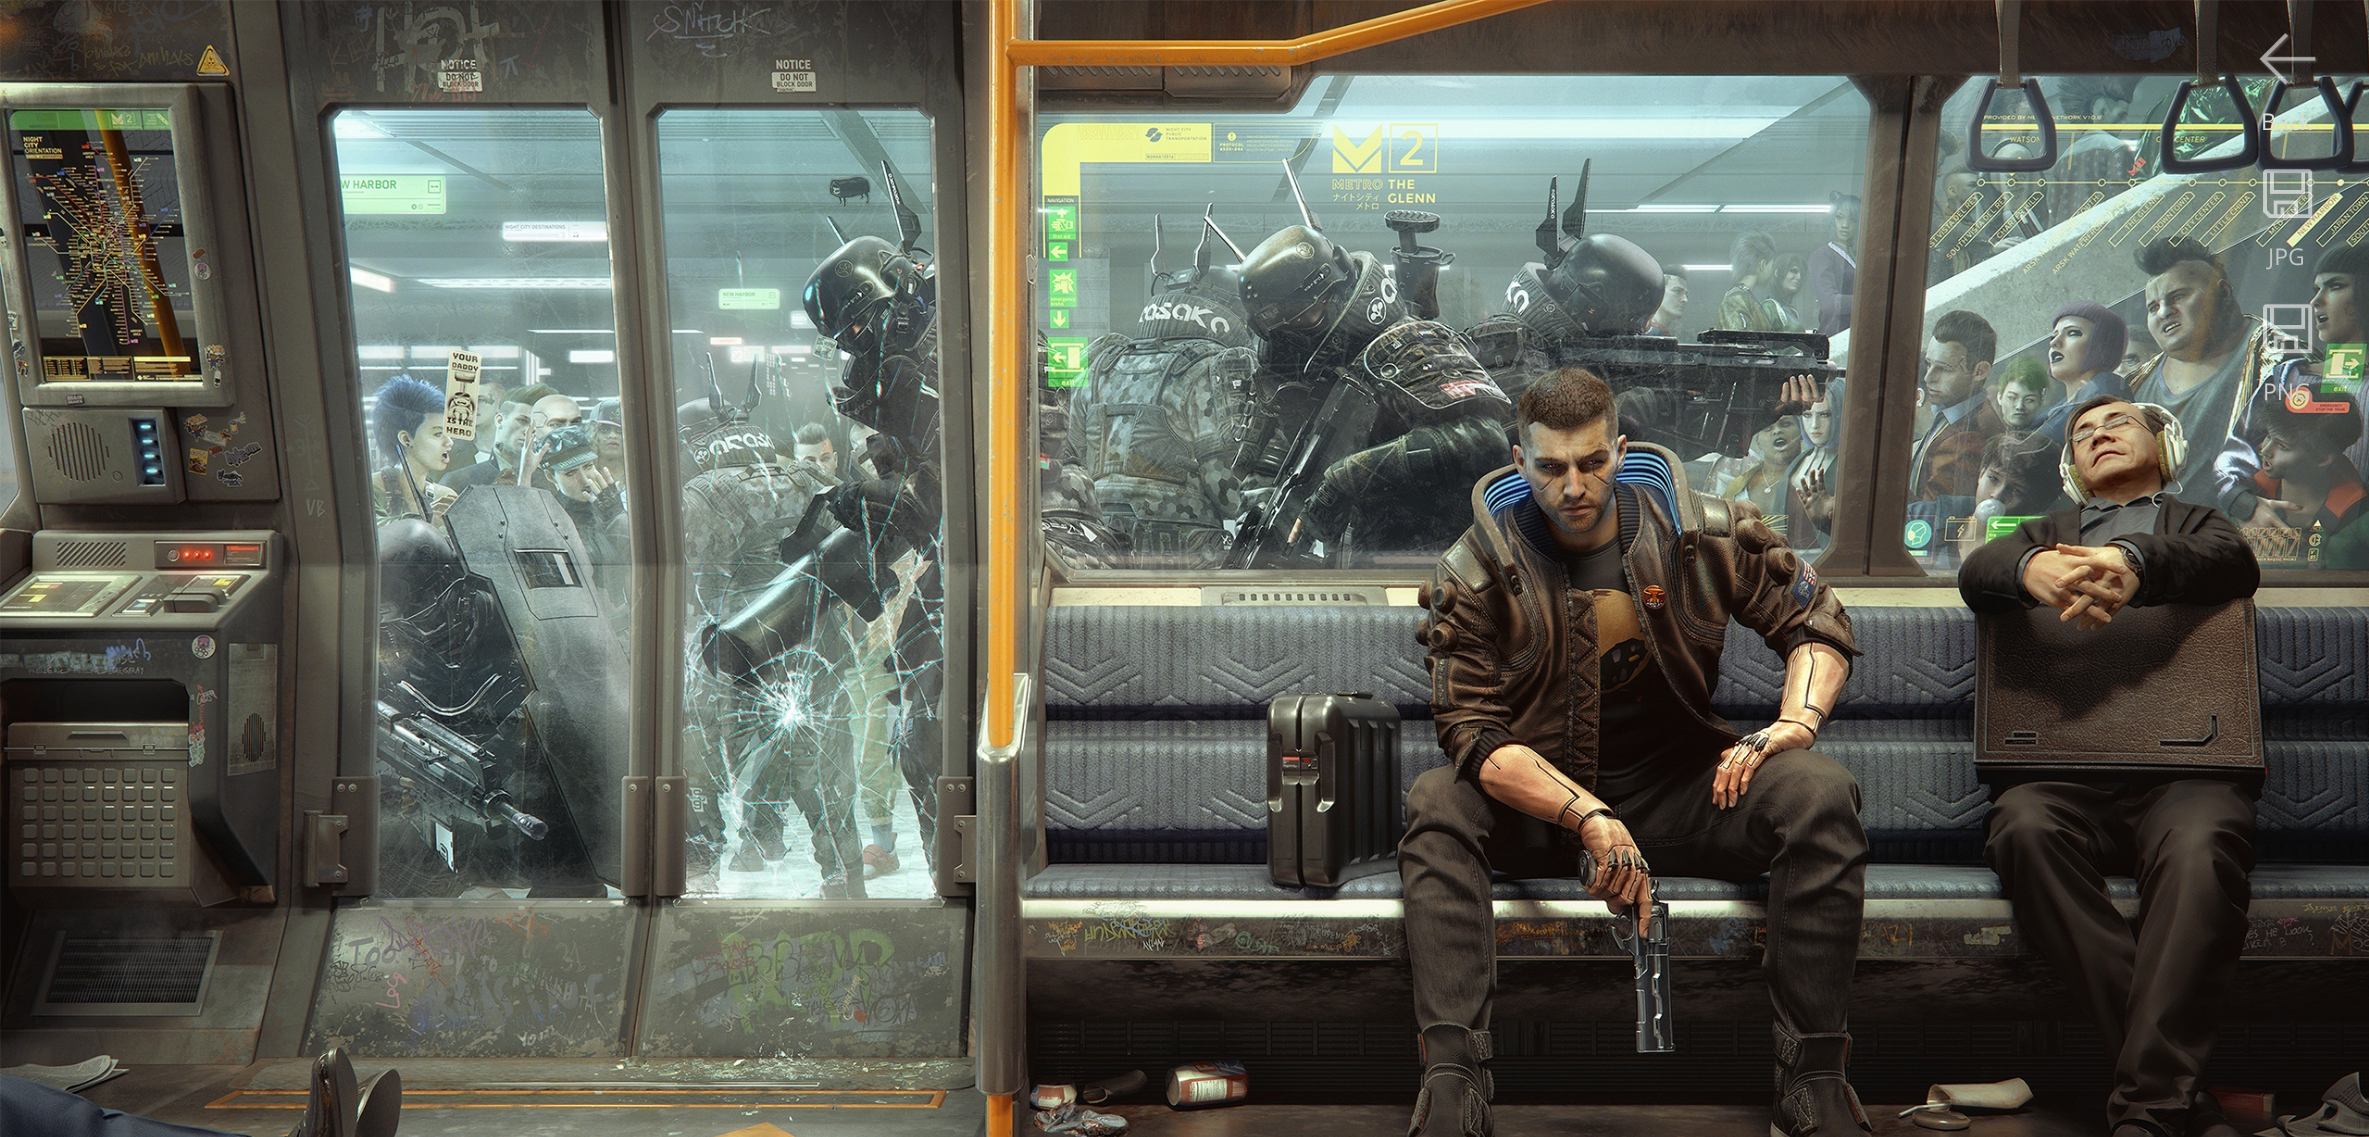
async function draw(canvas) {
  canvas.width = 2369
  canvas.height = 1137
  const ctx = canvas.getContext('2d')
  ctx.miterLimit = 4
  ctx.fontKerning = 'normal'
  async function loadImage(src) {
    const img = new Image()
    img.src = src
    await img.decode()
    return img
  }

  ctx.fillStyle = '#fff'
  ctx.fillRect(0, 0, 2369, 1137)
  ctx.drawImage(await loadImage('image0.png'), 0, 0, 2369, 1137)
  ctx.drawImage(await loadImage('image1.png'), 2259, 33, 59, 54)
  ctx.font = '23px Open Sans'
  ctx.fillStyle = '#dae1d4'
  ctx.fillText('Back', 2261, 130)
  ctx.drawImage(await loadImage('image2.png'), 2263, 168, 52, 53)
  ctx.fillStyle = '#c0c7c6'
  ctx.fillText('JPG', 2268, 265)
  ctx.drawImage(await loadImage('image3.png'), 2262, 303, 53, 53)
  ctx.fillStyle = '#cfcbc7'
  ctx.fillText('PNG', 2263, 400)
}

draw(document.querySelector('canvas'))
